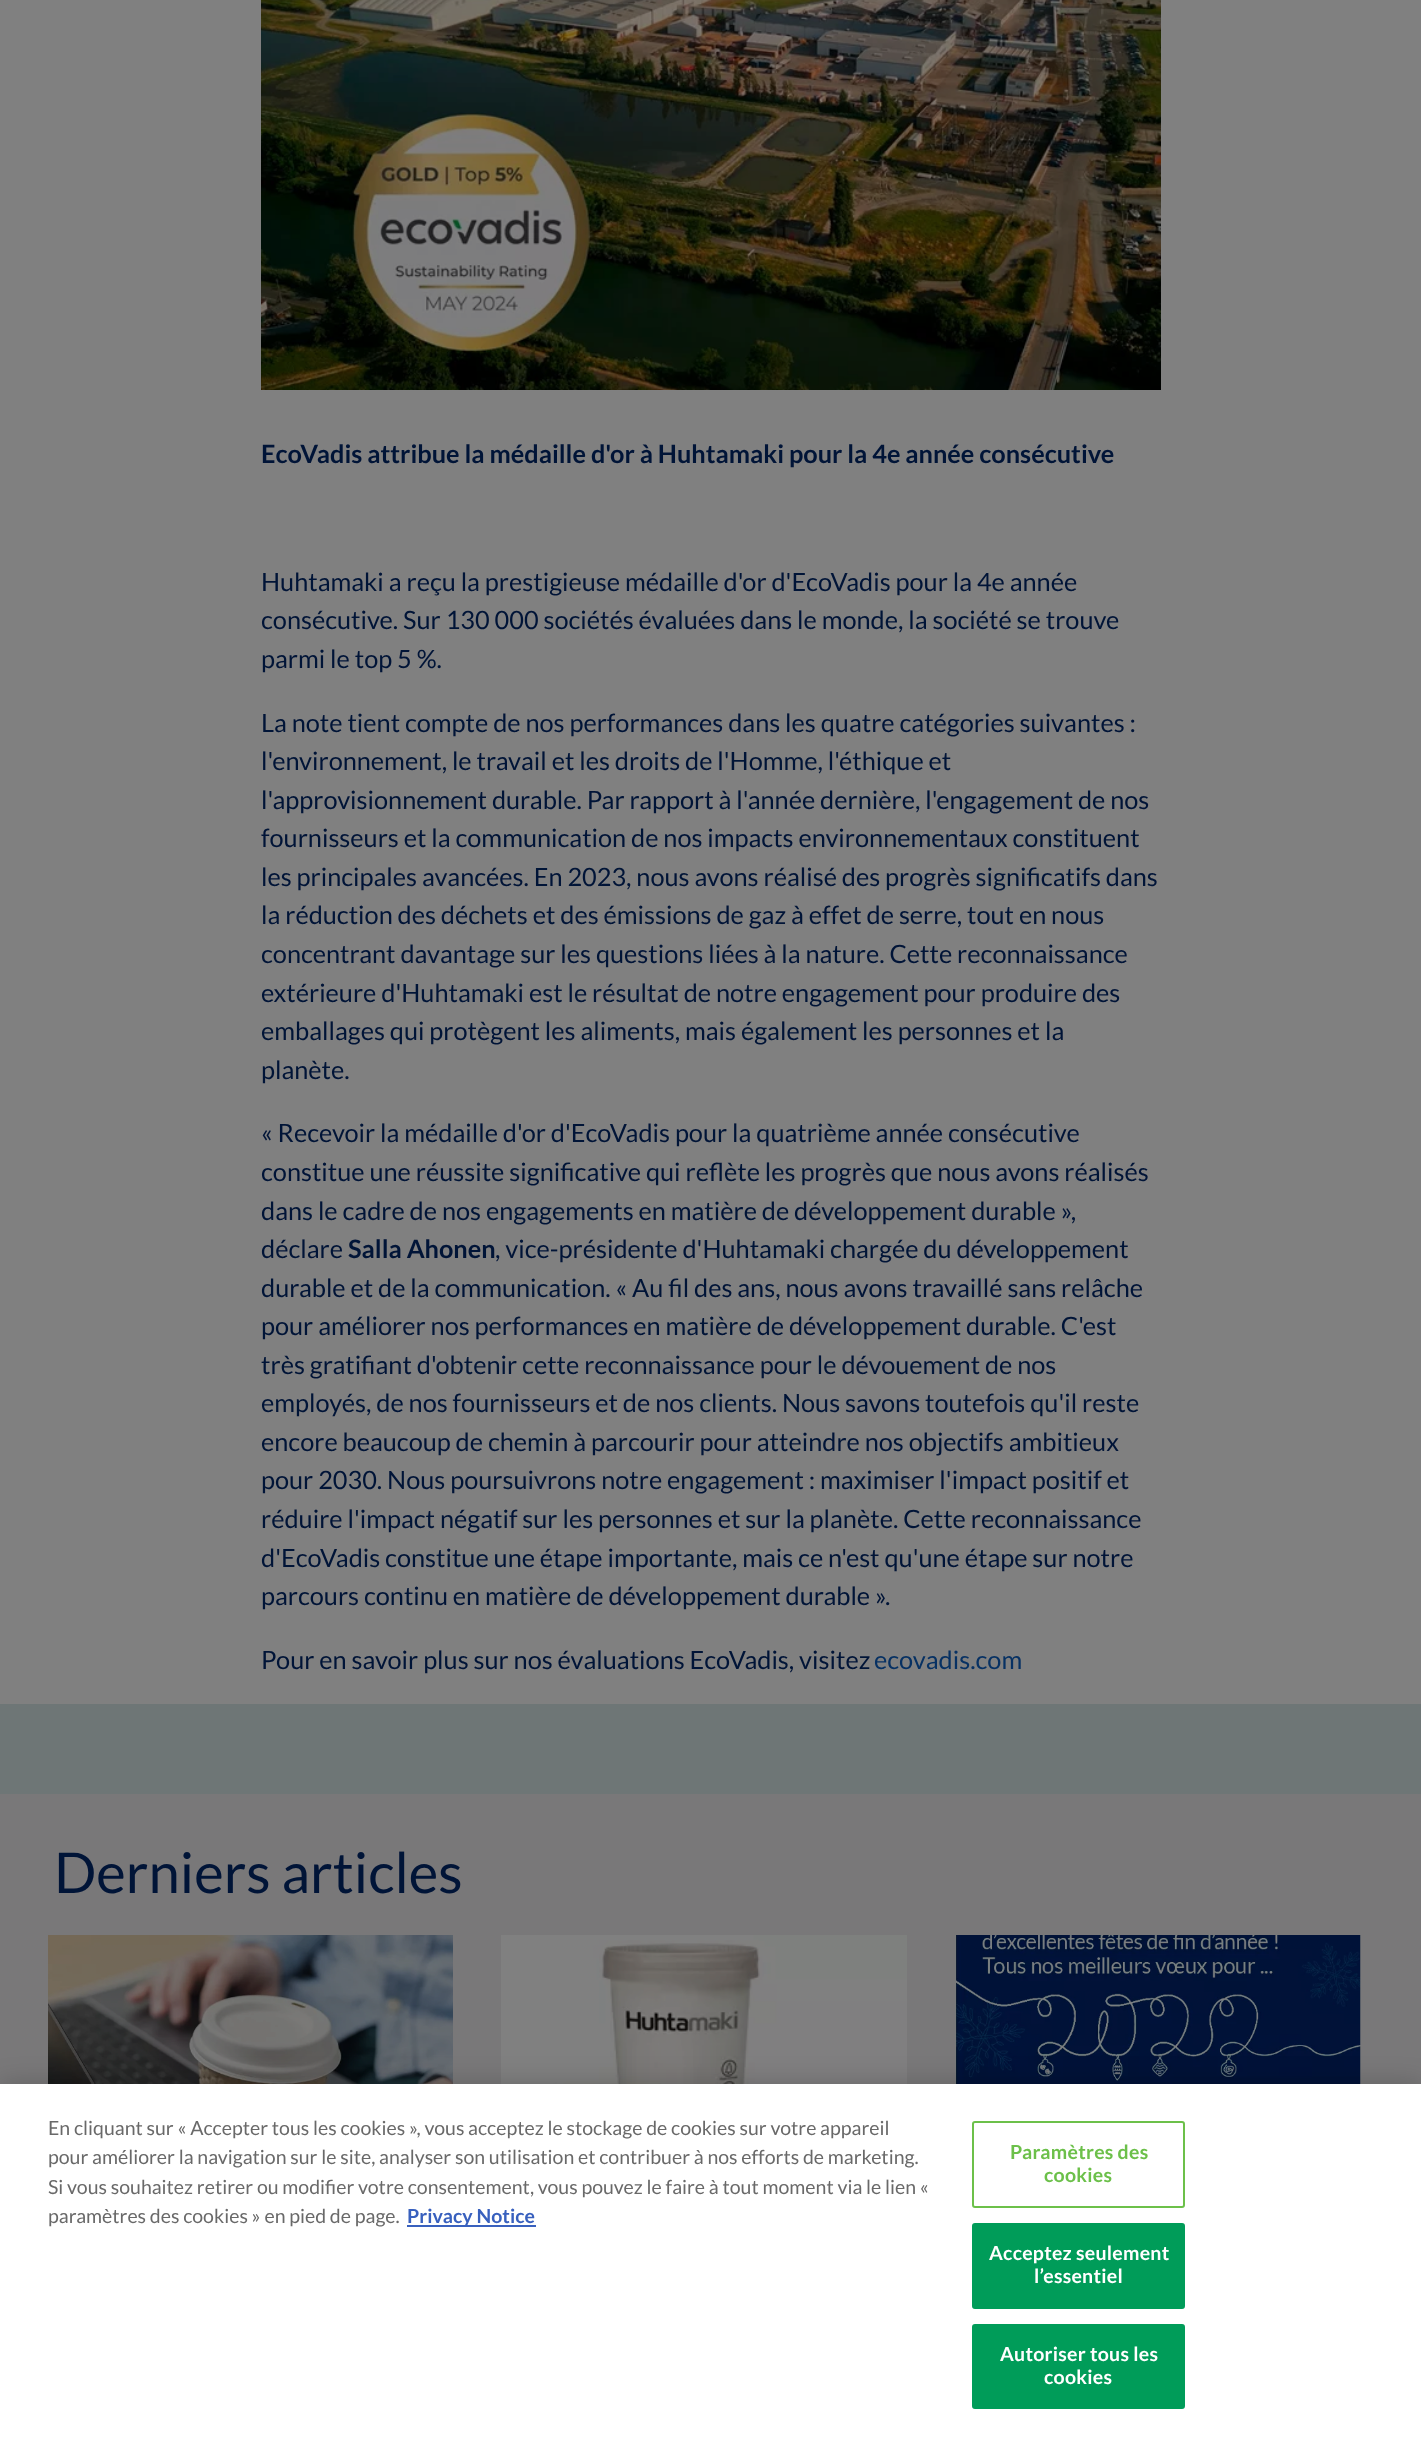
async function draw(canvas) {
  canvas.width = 1421
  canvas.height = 2439
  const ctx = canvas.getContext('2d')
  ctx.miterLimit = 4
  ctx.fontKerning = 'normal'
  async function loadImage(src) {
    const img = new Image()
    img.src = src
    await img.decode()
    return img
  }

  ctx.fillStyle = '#808080'
  ctx.fillRect(0, 0, 1421, 2439)
  ctx.drawImage(await loadImage('image0.png'), 261, 0, 900, 390)
  ctx.font = 'bold 25.3px Lato'
  ctx.fillStyle = '#001437'
  ctx.fillText('EcoVadis attribue la médaille d\'or à Huhtamaki pour la 4e année consécutive', 261, 463)
  ctx.font = '25.3px Lato'
  ctx.fillText('Huhtamaki a reçu la prestigieuse médaille d\'or d\'EcoVadis pour la 4e année', 261, 591)
  ctx.fillText('consécutive. Sur 130 000 sociétés évaluées dans le monde, la société se trouve', 261, 629)
  ctx.fillText('parmi le top 5 %.', 261, 668)
  ctx.fillText('La note tient compte de nos performances dans les quatre catégories suivantes :', 261, 732)
  ctx.fillText('l\'environnement, le travail et les droits de l\'Homme, l\'éthique et', 261, 770)
  ctx.fillText('l\'approvisionnement durable. Par rapport à l\'année dernière, l\'engagement de nos', 261, 809)
  ctx.fillText('fournisseurs et la communication de nos impacts environnementaux constituent', 261, 847)
  ctx.fillText('les principales avancées. En 2023, nous avons réalisé des progrès significatifs dans', 261, 886)
  ctx.fillText('la réduction des déchets et des émissions de gaz à effet de serre, tout en nous', 261, 924)
  ctx.fillText('concentrant davantage sur les questions liées à la nature. Cette reconnaissance', 261, 963)
  ctx.fillText('extérieure d\'Huhtamaki est le résultat de notre engagement pour produire des', 261, 1002)
  ctx.fillText('emballages qui protègent les aliments, mais également les personnes et la', 261, 1040)
  ctx.fillText('planète.', 261, 1079)
  ctx.fillText('« Recevoir la médaille d\'or d\'EcoVadis pour la quatrième année consécutive', 261, 1142)
  ctx.fillText('constitue une réussite significative qui reflète les progrès que nous avons réalisés', 261, 1181)
  ctx.fillText('dans le cadre de nos engagements en matière de développement durable »,', 261, 1220)
  ctx.fillText('déclare', 261, 1258)
  ctx.font = 'bold 25.3px Lato'
  ctx.fillText('Salla Ahonen', 348, 1258)
  ctx.font = '25.3px Lato'
  ctx.fillText(', vice-présidente d\'Huhtamaki chargée du développement', 495, 1258)
  ctx.fillText('durable et de la communication. « Au fil des ans, nous avons travaillé sans relâche', 261, 1297)
  ctx.fillText('pour améliorer nos performances en matière de développement durable. C\'est', 261, 1335)
  ctx.fillText('très gratifiant d\'obtenir cette reconnaissance pour le dévouement de nos', 261, 1374)
  ctx.fillText('employés, de nos fournisseurs et de nos clients. Nous savons toutefois qu\'il reste', 261, 1412)
  ctx.fillText('encore beaucoup de chemin à parcourir pour atteindre nos objectifs ambitieux', 261, 1451)
  ctx.fillText('pour 2030. Nous poursuivrons notre engagement : maximiser l\'impact positif et', 261, 1489)
  ctx.fillText('réduire l\'impact négatif sur les personnes et sur la planète. Cette reconnaissance', 261, 1528)
  ctx.fillText('d\'EcoVadis constitue une étape importante, mais ce n\'est qu\'une étape sur notre', 261, 1567)
  ctx.fillText('parcours continu en matière de développement durable ».', 261, 1605)
  ctx.fillText('Pour en savoir plus sur nos évaluations EcoVadis, visitez', 261, 1669)
  ctx.fillStyle = '#073163'
  ctx.fillText('ecovadis.com', 874, 1669)
  ctx.fillStyle = '#6e7676'
  ctx.fillRect(0, 1704, 1421, 90)
  ctx.fillStyle = '#797879'
  ctx.fillRect(0, 1794, 1421, 290)
  ctx.font = '56.25px Lato'
  ctx.fillStyle = '#001437'
  ctx.fillText('Derniers articles', 54, 1893)
  ctx.drawImage(await loadImage('image1.png'), 48, 1935, 405, 149)
  ctx.drawImage(await loadImage('image2.png'), 501, 1935, 406, 149)
  ctx.drawImage(await loadImage('image3.png'), 955, 1935, 406, 149)
  ctx.fillStyle = '#00000033'
  ctx.filter = 'blur(13.5px)'
  ctx.beginPath()
  ctx.rect(0, 2084, 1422, 355)
  ctx.fill()
  ctx.filter = 'none'
  ctx.fillStyle = '#fff'
  ctx.fillRect(0, 2084, 1421, 355)
  ctx.font = '19.5px Lato'
  ctx.fillStyle = '#696969'
  ctx.fillText('En cliquant sur « Accepter tous les cookies », vous acceptez le stockage de cookies sur votre appareil', 48, 2135)
  ctx.fillText('pour améliorer la navigation sur le site, analyser son utilisation et contribuer à nos efforts de marketing.', 48, 2164)
  ctx.fillText('Si vous souhaitez retirer ou modifier votre consentement, vous pouvez le faire à tout moment via le lien «', 48, 2194)
  ctx.fillText('paramètres des cookies » en pied de page.', 48, 2223)
  ctx.fillStyle = '#3860be'
  ctx.fillRect(407, 2225, 129, 2)
  ctx.font = 'bold 19.5px Lato'
  ctx.fillText('Privacy Notice', 407, 2223)
  ctx.beginPath()
  ctx.roundRect(973, 2122, 211, 85, 2)
  ctx.strokeStyle = '#6cc04a'
  ctx.lineWidth = 2
  ctx.stroke()
  ctx.letterSpacing = '0.25px'
  ctx.fillStyle = '#6cc04a'
  ctx.fillText('Paramètres des', 1010, 2159)
  ctx.fillText('cookies', 1044, 2182)
  ctx.fillStyle = '#009c59'
  ctx.beginPath()
  ctx.roundRect(973, 2224, 211, 84, 2)
  ctx.fill()
  ctx.strokeStyle = '#009c59'
  ctx.stroke()
  ctx.fillStyle = '#fff'
  ctx.fillText('Acceptez seulement', 989, 2260)
  ctx.fillText('l’essentiel', 1034, 2283)
  ctx.fillStyle = '#009c59'
  ctx.beginPath()
  ctx.roundRect(973, 2325, 211, 83, 2)
  ctx.fill()
  ctx.stroke()
  ctx.fillStyle = '#fff'
  ctx.fillText('Autoriser tous les', 1000, 2361)
  ctx.fillText('cookies', 1044, 2384)
}

draw(document.querySelector('canvas'))
